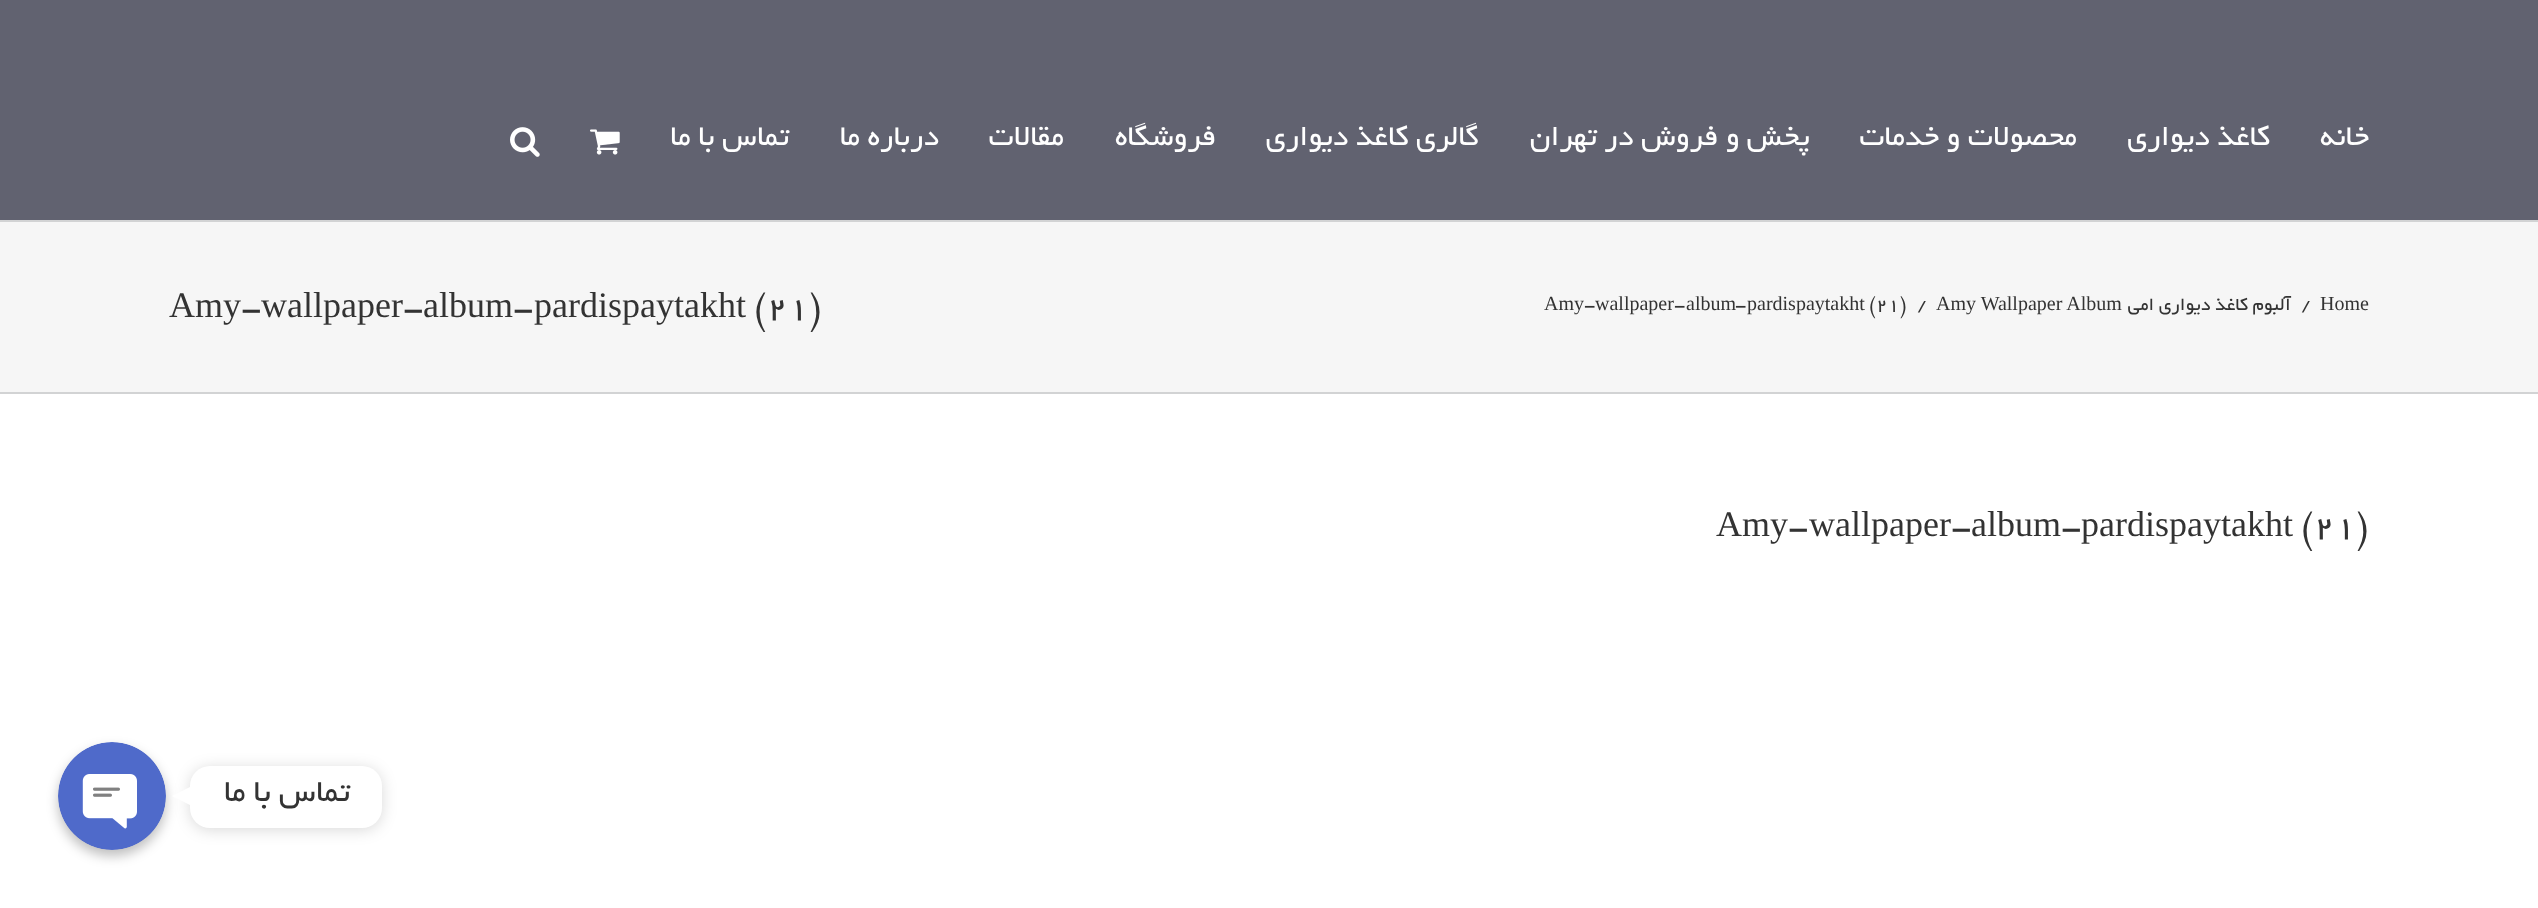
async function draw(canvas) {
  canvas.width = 2538
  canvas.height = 908
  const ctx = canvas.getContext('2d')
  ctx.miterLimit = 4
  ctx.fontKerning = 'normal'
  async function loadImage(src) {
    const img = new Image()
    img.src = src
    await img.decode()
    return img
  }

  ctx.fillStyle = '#fff'
  ctx.fillRect(0, 0, 2538, 908)
  ctx.fillStyle = '#616270'
  ctx.fillRect(0, 0, 2538, 220)
  ctx.drawImage(await loadImage('image0.png'), 510, 127, 30, 30)
  ctx.drawImage(await loadImage('image1.png'), 590, 129, 30, 26)
  ctx.direction = 'rtl'
  ctx.font = '32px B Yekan'
  ctx.fillStyle = '#fff'
  ctx.fillText('تماس با ما', 789, 145)
  ctx.fillText('درباره ما', 939, 145)
  ctx.fillText('مقالات', 1064, 145)
  ctx.fillText('فروشگاه', 1216, 145)
  ctx.fillText('گالری کاغذ دیواری', 1479, 145)
  ctx.fillText('پخش و فروش در تهران', 1810, 145)
  ctx.fillText('محصولات و خدمات', 2077, 145)
  ctx.fillText('کاغذ دیواری', 2270, 145)
  ctx.fillText('خانه', 2369, 145)
  ctx.fillStyle = '#f6f6f6'
  ctx.fillRect(0, 222, 2538, 170)
  ctx.fillStyle = '#d2d3d4'
  ctx.fillRect(0, 220, 2538, 2)
  ctx.fillRect(0, 392, 2538, 2)
  ctx.direction = 'ltr'
  ctx.font = '36px Liberation Serif'
  ctx.fillStyle = '#333'
  ctx.fillText('Amy', 169, 317)
  ctx.font = '36px B Yekan'
  ctx.fillText('-', 241, 317)
  ctx.font = '36px Liberation Serif'
  ctx.fillText('wallpaper', 261, 317)
  ctx.font = '36px B Yekan'
  ctx.fillText('-', 403, 317)
  ctx.font = '36px Liberation Serif'
  ctx.fillText('album', 423, 317)
  ctx.font = '36px B Yekan'
  ctx.fillText('-', 513, 317)
  ctx.font = '36px Liberation Serif'
  ctx.fillText('pardispaytakht', 534, 317)
  ctx.font = '36px B Yekan'
  ctx.fillText('(21)', 754, 317)
  ctx.font = '20px Liberation Serif'
  ctx.fillText('Amy', 1544, 310)
  ctx.font = '20px B Yekan'
  ctx.fillText('-', 1584, 310)
  ctx.font = '20px Liberation Serif'
  ctx.fillText('wallpaper', 1595, 310)
  ctx.font = '20px B Yekan'
  ctx.fillText('-', 1674, 310)
  ctx.font = '20px Liberation Serif'
  ctx.fillText('album', 1686, 310)
  ctx.font = '20px B Yekan'
  ctx.fillText('-', 1735, 310)
  ctx.font = '20px Liberation Serif'
  ctx.fillText('pardispaytakht', 1747, 310)
  ctx.font = '20px B Yekan'
  ctx.fillText('(21)', 1869, 310)
  ctx.fillText('/', 1917, 310)
  ctx.font = '20px Liberation Serif'
  ctx.fillText('Amy Wallpaper Album', 1936, 310)
  ctx.direction = 'rtl'
  ctx.font = '20px B Yekan'
  ctx.fillText('آلبوم کاغذ دیواری امی', 2291, 310)
  ctx.direction = 'ltr'
  ctx.fillText('/', 2301, 310)
  ctx.font = '20px Liberation Serif'
  ctx.fillText('Home', 2320, 310)
  ctx.font = '36px Liberation Serif'
  ctx.fillText('Amy', 1716, 536)
  ctx.font = '36px B Yekan'
  ctx.fillText('-', 1788, 536)
  ctx.font = '36px Liberation Serif'
  ctx.fillText('wallpaper', 1809, 536)
  ctx.font = '36px B Yekan'
  ctx.fillText('-', 1951, 536)
  ctx.font = '36px Liberation Serif'
  ctx.fillText('album', 1971, 536)
  ctx.font = '36px B Yekan'
  ctx.fillText('-', 2061, 536)
  ctx.font = '36px Liberation Serif'
  ctx.fillText('pardispaytakht', 2081, 536)
  ctx.font = '36px B Yekan'
  ctx.fillText('(21)', 2301, 536)
  ctx.fillStyle = '#00000040'
  ctx.filter = 'blur(6px)'
  ctx.beginPath()
  ctx.roundRect(58, 748, 108, 108, 54)
  ctx.fill()
  ctx.filter = 'none'
  ctx.drawImage(await loadImage('image2.png'), 58, 742, 108, 108)
  ctx.fillStyle = '#00000026'
  ctx.filter = 'blur(7.5px)'
  ctx.beginPath()
  ctx.roundRect(190, 768, 192, 62, 20)
  ctx.fill()
  ctx.filter = 'none'
  ctx.fillStyle = '#fff'
  ctx.beginPath()
  ctx.roundRect(190, 766, 192, 62, 20)
  ctx.fill()
  ctx.direction = 'rtl'
  ctx.font = '34px B Yekan'
  ctx.fillStyle = '#333'
  ctx.fillText('تماس با ما', 350, 801)
  ctx.fillStyle = '#fff'
  ctx.beginPath()
  ctx.moveTo(192, 786)
  ctx.lineTo(192, 806)
  ctx.lineTo(172, 796)
  ctx.closePath()
  ctx.fill()
}

draw(document.querySelector('canvas'))
